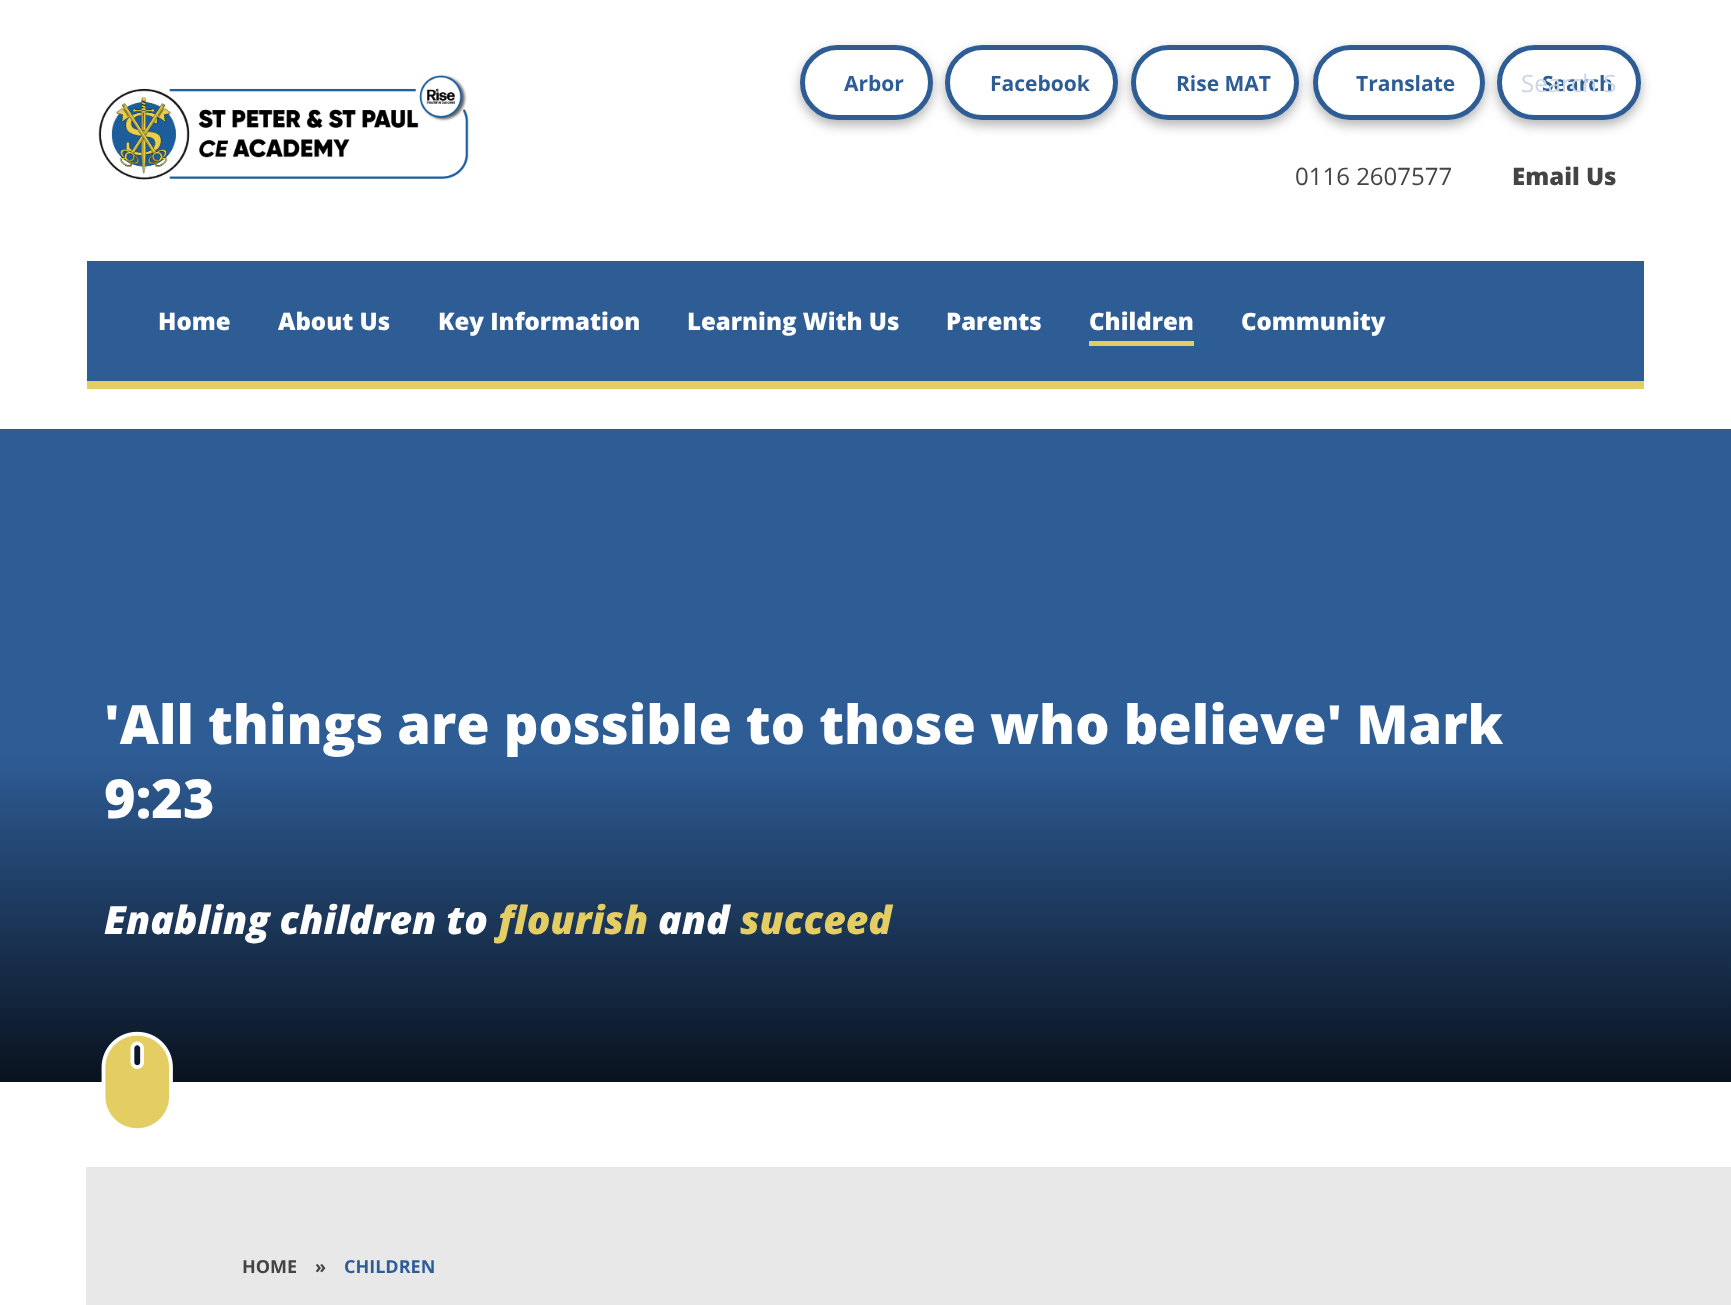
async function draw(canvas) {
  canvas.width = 1731
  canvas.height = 1305
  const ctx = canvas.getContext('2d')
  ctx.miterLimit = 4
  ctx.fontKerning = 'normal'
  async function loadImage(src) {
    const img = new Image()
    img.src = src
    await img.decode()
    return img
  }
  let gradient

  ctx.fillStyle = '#fff'
  ctx.fillRect(0, 0, 1731, 1305)
  ctx.drawImage(await loadImage('image0.png'), 98, 75, 371, 105)
  ctx.fillStyle = '#0000004d'
  ctx.filter = 'blur(6px)'
  ctx.beginPath()
  ctx.roundRect(800, 50, 133, 75, 37.5)
  ctx.fill()
  ctx.filter = 'none'
  ctx.fillStyle = '#fff'
  ctx.beginPath()
  ctx.roundRect(802.5, 47.5, 128, 70, 35)
  ctx.fill()
  ctx.strokeStyle = '#2e5d95'
  ctx.lineWidth = 5
  ctx.stroke()
  ctx.font = 'bold 21px Open Sans'
  ctx.fillStyle = '#2e5d95'
  ctx.fillText('Arbor', 844, 91)
  ctx.fillStyle = '#0000004d'
  ctx.filter = 'blur(6px)'
  ctx.beginPath()
  ctx.roundRect(945, 50, 173, 75, 37.5)
  ctx.fill()
  ctx.filter = 'none'
  ctx.fillStyle = '#fff'
  ctx.beginPath()
  ctx.roundRect(947.5, 47.5, 168, 70, 35)
  ctx.fill()
  ctx.stroke()
  ctx.fillStyle = '#2e5d95'
  ctx.fillText('Facebook', 990, 91)
  ctx.fillStyle = '#0000004d'
  ctx.filter = 'blur(6px)'
  ctx.beginPath()
  ctx.roundRect(1131, 50, 168, 75, 37.5)
  ctx.fill()
  ctx.filter = 'none'
  ctx.fillStyle = '#fff'
  ctx.beginPath()
  ctx.roundRect(1133.5, 47.5, 163, 70, 35)
  ctx.fill()
  ctx.stroke()
  ctx.fillStyle = '#2e5d95'
  ctx.fillText('Rise MAT', 1176, 91)
  ctx.fillStyle = '#0000004d'
  ctx.filter = 'blur(6px)'
  ctx.beginPath()
  ctx.roundRect(1497, 50, 144, 75, 37.5)
  ctx.fill()
  ctx.filter = 'none'
  ctx.fillStyle = '#fff'
  ctx.beginPath()
  ctx.roundRect(1499.5, 47.5, 139, 70, 35)
  ctx.fill()
  ctx.stroke()
  ctx.fillStyle = '#0000004d'
  ctx.filter = 'blur(6px)'
  ctx.beginPath()
  ctx.roundRect(1313, 50, 172, 75, 37.5)
  ctx.fill()
  ctx.filter = 'none'
  ctx.fillStyle = '#fff'
  ctx.beginPath()
  ctx.roundRect(1315.5, 47.5, 167, 70, 35)
  ctx.fill()
  ctx.stroke()
  ctx.fillStyle = '#2e5d95'
  ctx.fillText('Translate', 1356, 91)
  ctx.fillText('Search', 1542, 91)
  ctx.font = '24px Open Sans'
  ctx.fillStyle = '#cad6e4'
  ctx.fillText('Search S', 1521, 92)
  ctx.fillStyle = '#444'
  ctx.fillText('0116 2607577', 1295, 185)
  ctx.font = '800 24px Open Sans'
  ctx.fillText('Email Us', 1512, 185)
  ctx.fillStyle = '#2e5d95'
  ctx.fillRect(87, 261, 1557, 120)
  ctx.fillStyle = '#fff'
  ctx.fillText('Home', 158, 330)
  ctx.fillText('About Us', 278, 330)
  ctx.fillText('Key Information', 438, 330)
  ctx.fillText('Learning With Us', 687, 330)
  ctx.fillText('Parents', 946, 330)
  ctx.fillText('Children', 1089, 330)
  ctx.fillStyle = '#e4ce63'
  ctx.fillRect(1089, 341, 105, 5)
  ctx.fillStyle = '#fff'
  ctx.fillText('Community', 1241, 330)
  ctx.fillStyle = '#e4ce63'
  ctx.fillRect(87, 381, 1557, 8)
  ctx.fillStyle = '#2e5d95'
  ctx.fillRect(0, 429, 1731, 327)
  gradient = ctx.createLinearGradient(866, 1082, 866, 756)
  gradient.addColorStop(0, '#09121e')
  gradient.addColorStop(1, '#2e5c95')
  ctx.fillStyle = gradient
  ctx.fillRect(0, 756, 1731, 326)
  ctx.font = '800 54px Open Sans'
  ctx.fillStyle = '#fff'
  ctx.fillText('\'All things are possible to those who believe\' Mark', 104, 744)
  ctx.fillText('9:23', 104, 818)
  ctx.font = 'italic 800 39px Open Sans'
  ctx.fillText('Enabling children to', 104, 934)
  ctx.fillStyle = '#e4ce63'
  ctx.fillText('flourish', 498, 934)
  ctx.fillStyle = '#fff'
  ctx.fillText('and', 658, 934)
  ctx.fillStyle = '#e4ce63'
  ctx.fillText('succeed', 740, 934)
  ctx.drawImage(await loadImage('image1.png'), 101, 1031, 72, 98)
  ctx.fillStyle = '#e8e8e8'
  ctx.fillRect(86, 1167, 1645, 138)
  ctx.font = 'bold 18px Open Sans'
  ctx.fillStyle = '#444'
  ctx.fillText('HOME', 242, 1273)
  ctx.fillText('»', 315, 1273)
  ctx.fillStyle = '#2e5d95'
  ctx.fillText('CHILDREN', 344, 1273)
}

draw(document.querySelector('canvas'))
